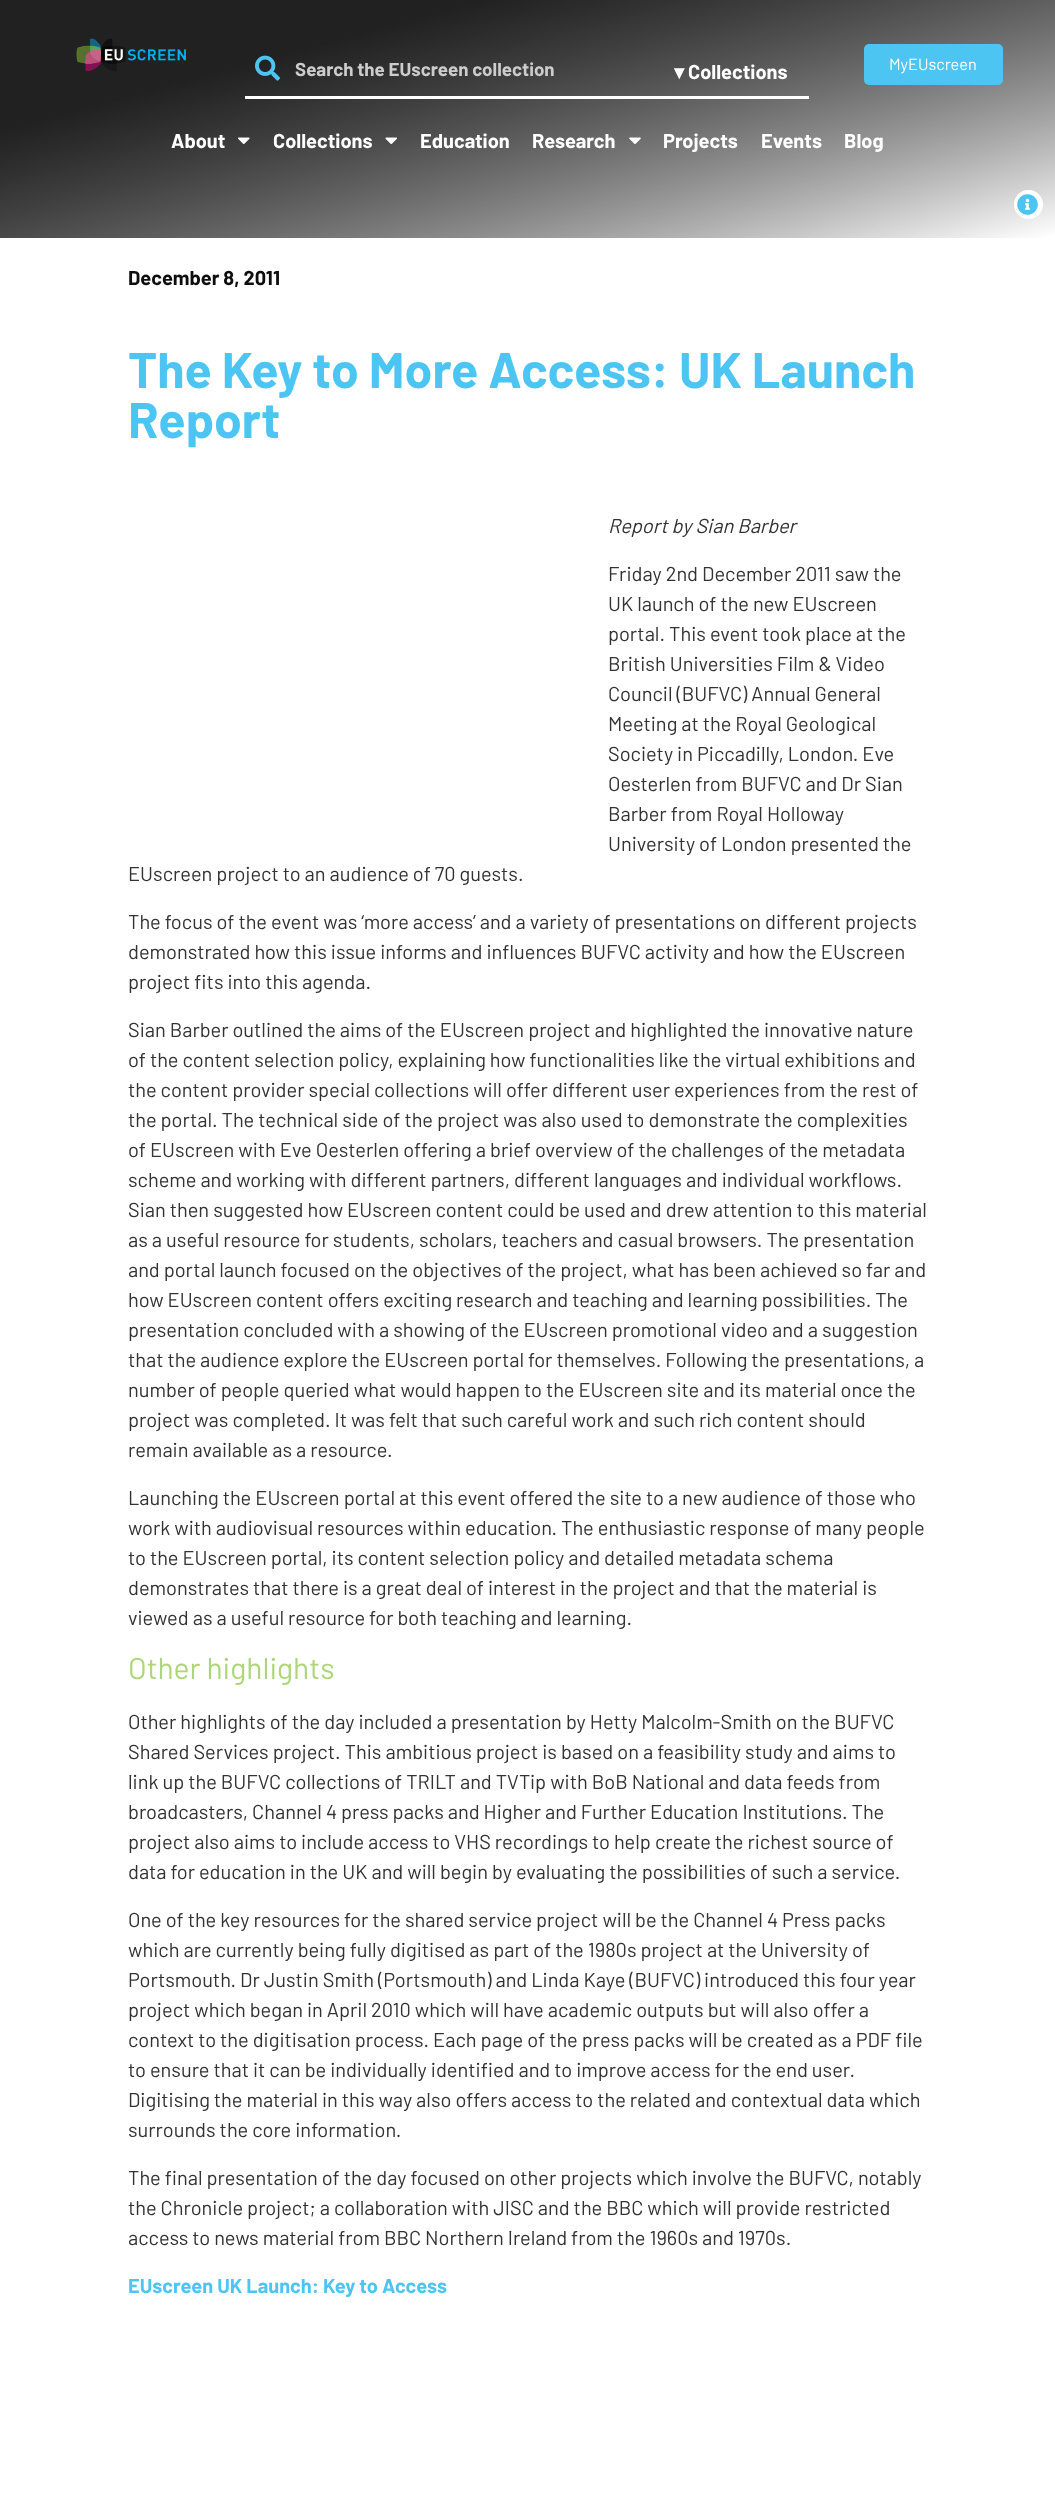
async function draw(canvas) {
  canvas.width = 1055
  canvas.height = 2513
  const ctx = canvas.getContext('2d')
  ctx.miterLimit = 4
  ctx.fontKerning = 'normal'
  async function loadImage(src) {
    const img = new Image()
    img.src = src
    await img.decode()
    return img
  }
  let gradient

  ctx.fillStyle = '#fff'
  ctx.fillRect(0, 0, 1055, 2513)
  gradient = ctx.createLinearGradient(462, -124, 593, 361)
  gradient.addColorStop(0.25, '#5c5c5c')
  gradient.addColorStop(1, '#fff')
  ctx.fillStyle = gradient
  ctx.fillRect(0, 0, 1055, 238)
  gradient = ctx.createLinearGradient(462, -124, 593, 361)
  gradient.addColorStop(0.25, '#000000a3')
  gradient.addColorStop(1, '#00000000')
  ctx.fillStyle = gradient
  ctx.fillRect(0, 0, 1055, 238)
  ctx.drawImage(await loadImage('image0.png'), 76, 38, 110, 34)
  ctx.fillStyle = '#fff'
  ctx.fillRect(245, 96, 564, 3)
  ctx.drawImage(await loadImage('image1.png'), 255, 55, 25, 26)
  ctx.font = 'bold 18.75px Barlow'
  ctx.fillStyle = '#ccc'
  ctx.fillText('Search the EUscreen collection', 295, 76)
  ctx.font = '18.75px Liberation Sans'
  ctx.fillStyle = '#fff'
  ctx.fillText('▼', 670, 79)
  ctx.font = 'bold 20px Barlow'
  ctx.fillText('Collections', 688, 79)
  ctx.fillText('About', 171, 148)
  ctx.drawImage(await loadImage('image2.png'), 238, 137, 12, 8)
  ctx.fillText('Collections', 273, 148)
  ctx.drawImage(await loadImage('image3.png'), 385, 137, 12, 8)
  ctx.fillText('Education', 420, 148)
  ctx.fillText('Research', 532, 148)
  ctx.drawImage(await loadImage('image4.png'), 629, 137, 12, 7)
  ctx.fillText('Projects', 663, 148)
  ctx.fillText('Events', 761, 148)
  ctx.fillText('Blog', 844, 148)
  ctx.fillStyle = '#4cc5f3'
  ctx.beginPath()
  ctx.roundRect(864, 44, 139, 41, 5)
  ctx.fill()
  ctx.font = '16.25px Barlow'
  ctx.fillStyle = '#fff'
  ctx.fillText('MyEUscreen', 889, 70)
  ctx.beginPath()
  ctx.arc(1028.5, 204.5, 14.5, 0, 2 * Math.PI)
  ctx.fill()
  ctx.drawImage(await loadImage('image5.png'), 1017, 194, 21, 21)
  ctx.font = 'bold 20px Barlow'
  ctx.fillStyle = '#0e0e0e'
  ctx.fillText('December 8, 2011', 128, 285)
  ctx.font = 'bold 50px Barlow'
  ctx.fillStyle = '#4cc5f3'
  ctx.fillText('The Key to More Access: UK Launch', 128, 388)
  ctx.fillText('Report', 128, 438)
  ctx.font = 'italic 20px Barlow'
  ctx.fillStyle = '#333'
  ctx.fillText('Report by Sian Barber', 608, 533)
  ctx.font = '20px Barlow'
  ctx.fillText('Friday 2nd December 2011 saw the', 608, 581)
  ctx.fillText('UK launch of the new EUscreen', 608, 611)
  ctx.fillText('portal. This event took place at the', 608, 641)
  ctx.fillText('British Universities Film & Video', 608, 671)
  ctx.fillText('Council (BUFVC) Annual General', 608, 701)
  ctx.fillText('Meeting at the Royal Geological', 608, 731)
  ctx.fillText('Society in Piccadilly, London. Eve', 608, 761)
  ctx.fillText('Oesterlen from BUFVC and Dr Sian', 608, 791)
  ctx.fillText('Barber from Royal Holloway', 608, 821)
  ctx.fillText('University of London presented the', 608, 851)
  ctx.fillText('EUscreen project to an audience of 70 guests.', 128, 881)
  ctx.fillText('The focus of the event was ‘more access’ and a variety of presentations on different projects', 128, 929)
  ctx.fillText('demonstrated how this issue informs and influences BUFVC activity and how the EUscreen', 128, 959)
  ctx.fillText('project fits into this agenda.', 128, 989)
  ctx.fillText('Sian Barber outlined the aims of the EUscreen project and highlighted the innovative nature', 128, 1037)
  ctx.fillText('of the content selection policy, explaining how functionalities like the virtual exhibitions and', 128, 1067)
  ctx.fillText('the content provider special collections will offer different user experiences from the rest of', 128, 1097)
  ctx.fillText('the portal. The technical side of the project was also used to demonstrate the complexities', 128, 1127)
  ctx.fillText('of EUscreen with Eve Oesterlen offering a brief overview of the challenges of the metadata', 128, 1157)
  ctx.fillText('scheme and working with different partners, different languages and individual workflows.', 128, 1187)
  ctx.fillText('Sian then suggested how EUscreen content could be used and drew attention to this material', 128, 1217)
  ctx.fillText('as a useful resource for students, scholars, teachers and casual browsers. The presentation', 128, 1247)
  ctx.fillText('and portal launch focused on the objectives of the project, what has been achieved so far and', 128, 1277)
  ctx.fillText('how EUscreen content offers exciting research and teaching and learning possibilities. The', 128, 1307)
  ctx.fillText('presentation concluded with a showing of the EUscreen promotional video and a suggestion', 128, 1337)
  ctx.fillText('that the audience explore the EUscreen portal for themselves. Following the presentations, a', 128, 1367)
  ctx.fillText('number of people queried what would happen to the EUscreen site and its material once the', 128, 1397)
  ctx.fillText('project was completed. It was felt that such careful work and such rich content should', 128, 1427)
  ctx.fillText('remain available as a resource.', 128, 1457)
  ctx.fillText('Launching the EUscreen portal at this event offered the site to a new audience of those who', 128, 1505)
  ctx.fillText('work with audiovisual resources within education. The enthusiastic response of many people', 128, 1535)
  ctx.fillText('to the EUscreen portal, its content selection policy and detailed metadata schema', 128, 1565)
  ctx.fillText('demonstrates that there is a great deal of interest in the project and that the material is', 128, 1595)
  ctx.fillText('viewed as a useful resource for both teaching and learning.', 128, 1625)
  ctx.font = '30px Barlow'
  ctx.fillStyle = '#aed678'
  ctx.fillText('Other highlights', 128, 1679)
  ctx.font = '20px Barlow'
  ctx.fillStyle = '#333'
  ctx.fillText('Other highlights of the day included a presentation by Hetty Malcolm-Smith on the BUFVC', 128, 1729)
  ctx.fillText('Shared Services project. This ambitious project is based on a feasibility study and aims to', 128, 1759)
  ctx.fillText('link up the BUFVC collections of TRILT and TVTip with BoB National and data feeds from', 128, 1789)
  ctx.fillText('broadcasters, Channel 4 press packs and Higher and Further Education Institutions. The', 128, 1819)
  ctx.fillText('project also aims to include access to VHS recordings to help create the richest source of', 128, 1849)
  ctx.fillText('data for education in the UK and will begin by evaluating the possibilities of such a service.', 128, 1879)
  ctx.fillText('One of the key resources for the shared service project will be the Channel 4 Press packs', 128, 1927)
  ctx.fillText('which are currently being fully digitised as part of the 1980s project at the University of', 128, 1957)
  ctx.fillText('Portsmouth. Dr Justin Smith (Portsmouth) and Linda Kaye (BUFVC) introduced this four year', 128, 1987)
  ctx.fillText('project which began in April 2010 which will have academic outputs but will also offer a', 128, 2017)
  ctx.fillText('context to the digitisation process. Each page of the press packs will be created as a PDF file', 128, 2047)
  ctx.fillText('to ensure that it can be individually identified and to improve access for the end user.', 128, 2077)
  ctx.fillText('Digitising the material in this way also offers access to the related and contextual data which', 128, 2107)
  ctx.fillText('surrounds the core information.', 128, 2137)
  ctx.fillText('The final presentation of the day focused on other projects which involve the BUFVC, notably', 128, 2185)
  ctx.fillText('the Chronicle project; a collaboration with JISC and the BBC which will provide restricted', 128, 2215)
  ctx.fillText('access to news material from BBC Northern Ireland from the 1960s and 1970s.', 128, 2245)
  ctx.font = 'bold 20px Barlow'
  ctx.fillStyle = '#4cc5f3'
  ctx.fillText('EUscreen UK Launch: Key to Access', 128, 2293)
}

draw(document.querySelector('canvas'))
